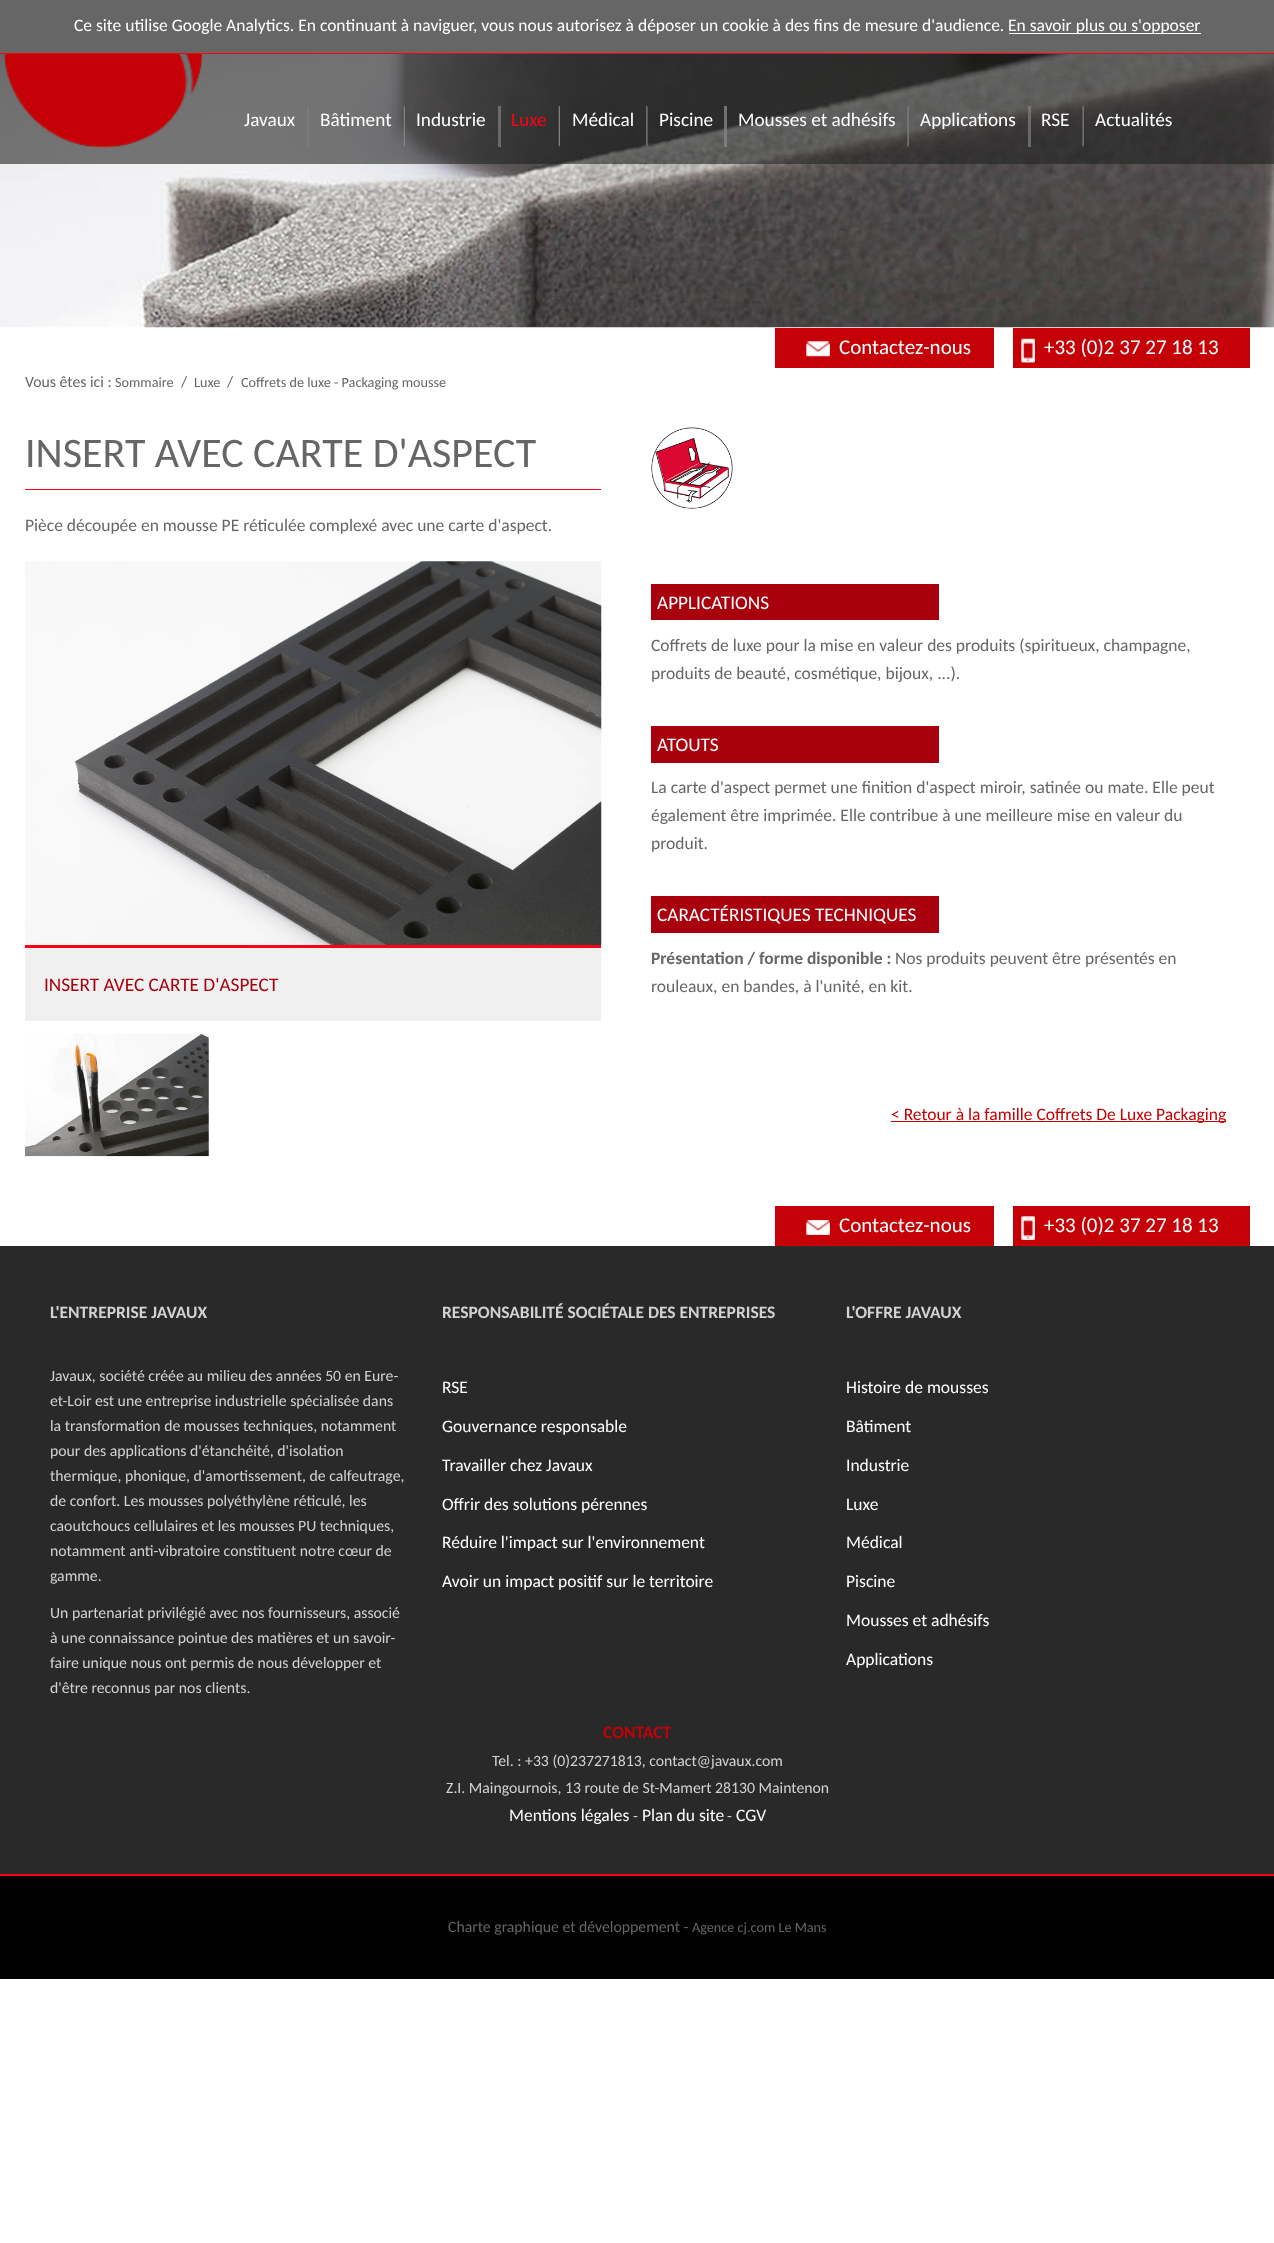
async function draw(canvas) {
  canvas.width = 1274
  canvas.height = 2243
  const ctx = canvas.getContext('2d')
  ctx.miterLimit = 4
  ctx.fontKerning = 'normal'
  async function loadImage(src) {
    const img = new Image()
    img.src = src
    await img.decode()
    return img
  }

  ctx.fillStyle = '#fff'
  ctx.fillRect(0, 0, 1274, 2243)
  ctx.fillStyle = '#666'
  ctx.fillRect(0, 0, 1274, 53)
  ctx.fillStyle = '#ff0012'
  ctx.fillRect(0, 53, 1274, 1)
  ctx.font = '17.5px Carlito'
  ctx.fillStyle = '#fff'
  ctx.fillText('Ce site utilise Google Analytics. En continuant à naviguer, vous nous autorisez à déposer un cookie à des fins de mesure d\'audience.', 74, 31)
  ctx.fillRect(1009, 33, 192, 1)
  ctx.fillText('En savoir plus ou s\'opposer', 1008, 31)
  ctx.drawImage(await loadImage('image0.png'), 0, 54, 1274, 274)
  ctx.fillStyle = '#22222299'
  ctx.fillRect(0, 54, 1274, 110)
  ctx.drawImage(await loadImage('image1.png'), 3, 54, 200, 94)
  ctx.font = '19.25px Carlito'
  ctx.fillStyle = '#fff'
  ctx.fillText('Javaux', 244, 126)
  ctx.drawImage(await loadImage('image2.png'), 307, 106, 2, 40)
  ctx.fillText('Bâtiment', 320, 126)
  ctx.drawImage(await loadImage('image3.png'), 403, 106, 2, 41)
  ctx.fillText('Industrie', 416, 126)
  ctx.fillStyle = '#818181b0'
  ctx.fillRect(498, 106, 3, 41)
  ctx.fillStyle = '#ff0012'
  ctx.fillText('Luxe', 511, 126)
  ctx.drawImage(await loadImage('image4.png'), 558, 106, 2, 41)
  ctx.fillStyle = '#fff'
  ctx.fillText('Médical', 572, 126)
  ctx.drawImage(await loadImage('image5.png'), 646, 106, 2, 41)
  ctx.fillText('Piscine', 659, 126)
  ctx.fillStyle = '#818181cf'
  ctx.fillRect(724, 106, 3, 41)
  ctx.fillStyle = '#fff'
  ctx.fillText('Mousses et adhésifs', 738, 126)
  ctx.drawImage(await loadImage('image6.png'), 907, 106, 2, 41)
  ctx.fillText('Applications', 920, 126)
  ctx.fillStyle = '#818181b0'
  ctx.fillRect(1028, 106, 3, 41)
  ctx.fillStyle = '#fff'
  ctx.fillText('RSE', 1041, 126)
  ctx.drawImage(await loadImage('image7.png'), 1082, 106, 2, 41)
  ctx.fillText('Actualités', 1095, 126)
  ctx.fillStyle = '#c50006'
  ctx.fillRect(775, 328, 219, 40)
  ctx.drawImage(await loadImage('image8.png'), 806, 341, 24, 16)
  ctx.font = '21px Carlito'
  ctx.fillStyle = '#fff'
  ctx.fillText('Contactez-nous', 839, 354)
  ctx.fillStyle = '#c50006'
  ctx.fillRect(1013, 328, 237, 40)
  ctx.drawImage(await loadImage('image9.png'), 1021, 338, 14, 25)
  ctx.fillStyle = '#fff'
  ctx.fillText('+33 (0)2 37 27 18 13', 1044, 354)
  ctx.font = '15.75px Carlito'
  ctx.fillStyle = '#666'
  ctx.fillText('Vous êtes ici :', 25, 387)
  ctx.font = '14.2px Carlito'
  ctx.fillText('Sommaire', 115, 387)
  ctx.font = '15.75px Carlito'
  ctx.fillText('/', 181, 387)
  ctx.font = '14.2px Carlito'
  ctx.fillText('Luxe', 194, 387)
  ctx.font = '15.75px Carlito'
  ctx.fillText('/', 227, 387)
  ctx.font = '14.2px Carlito'
  ctx.fillText('Coffrets de luxe - Packaging mousse', 241, 387)
  ctx.fillStyle = '#ff0012'
  ctx.fillRect(25, 489, 576, 1)
  ctx.font = '42px Carlito'
  ctx.fillStyle = '#666'
  ctx.fillText('INSERT AVEC CARTE D\'ASPECT', 25, 467)
  ctx.font = '17.5px Carlito'
  ctx.fillText('Pièce découpée en mousse PE réticulée complexé avec une carte d\'aspect.', 25, 531)
  ctx.drawImage(await loadImage('image10.png'), 25, 561, 577, 384)
  ctx.fillStyle = '#f0f0f0'
  ctx.fillRect(25, 948, 576, 73)
  ctx.fillStyle = '#ff0012'
  ctx.fillRect(25, 945, 576, 3)
  ctx.font = '19.25px Carlito'
  ctx.fillStyle = '#a8000c'
  ctx.fillText('INSERT AVEC CARTE D\'ASPECT', 44, 991)
  ctx.drawImage(await loadImage('image11.png'), 25, 1033, 184, 124)
  ctx.drawImage(await loadImage('image12.png'), 651, 427, 82, 82)
  ctx.fillRect(651, 584, 288, 36)
  ctx.fillStyle = '#fff'
  ctx.fillText('APPLICATIONS', 657, 609)
  ctx.font = '17.5px Carlito'
  ctx.fillStyle = '#666'
  ctx.fillText('Coffrets de luxe pour la mise en valeur des produits (spiritueux, champagne,', 651, 651)
  ctx.fillText('produits de beauté, cosmétique, bijoux, ...).', 651, 679)
  ctx.fillStyle = '#a8000c'
  ctx.fillRect(651, 726, 288, 37)
  ctx.font = '19.25px Carlito'
  ctx.fillStyle = '#fff'
  ctx.fillText('ATOUTS', 657, 751)
  ctx.font = '17.5px Carlito'
  ctx.fillStyle = '#666'
  ctx.fillText('La carte d\'aspect permet une finition d\'aspect miroir, satinée ou mate. Elle peut', 651, 793)
  ctx.fillText('également être imprimée. Elle contribue à une meilleure mise en valeur du', 651, 821)
  ctx.fillText('produit.', 651, 849)
  ctx.fillStyle = '#a8000c'
  ctx.fillRect(651, 896, 288, 37)
  ctx.font = '19.25px Carlito'
  ctx.fillStyle = '#fff'
  ctx.fillText('CARACTÉRISTIQUES TECHNIQUES', 657, 921)
  ctx.font = 'bold 17.5px Carlito'
  ctx.fillStyle = '#666'
  ctx.fillText('Présentation / forme disponible :', 651, 964)
  ctx.font = '17.5px Carlito'
  ctx.fillText('Nos produits peuvent être présentés en', 895, 964)
  ctx.fillText('rouleaux, en bandes, à l\'unité, en kit.', 651, 992)
  ctx.fillStyle = '#c50006'
  ctx.fillRect(891, 1121, 335, 1)
  ctx.fillText('< Retour à la famille Coffrets De Luxe Packaging', 891, 1120)
  ctx.fillRect(775, 1206, 219, 40)
  ctx.drawImage(await loadImage('image13.png'), 806, 1220, 24, 15)
  ctx.font = '21px Carlito'
  ctx.fillStyle = '#fff'
  ctx.fillText('Contactez-nous', 839, 1232)
  ctx.fillStyle = '#c50006'
  ctx.fillRect(1013, 1206, 237, 40)
  ctx.drawImage(await loadImage('image14.png'), 1021, 1216, 14, 24)
  ctx.fillStyle = '#fff'
  ctx.fillText('+33 (0)2 37 27 18 13', 1044, 1232)
  ctx.fillStyle = '#2a2929'
  ctx.fillRect(0, 1246, 1274, 628)
  ctx.fillStyle = '#ff0012'
  ctx.fillRect(0, 1874, 1274, 2)
  ctx.font = 'bold 17.5px Carlito'
  ctx.fillStyle = '#d2d2d2'
  ctx.fillText('L\'ENTREPRISE JAVAUX', 50, 1318)
  ctx.font = '15.75px Carlito'
  ctx.fillText('Javaux, société créée au milieu des années 50 en Eure-', 50, 1381)
  ctx.fillText('et-Loir est une entreprise industrielle spécialisée dans', 50, 1406)
  ctx.fillText('la transformation de mousses techniques, notamment', 50, 1431)
  ctx.fillText('pour des applications d\'étanchéité, d\'isolation', 50, 1456)
  ctx.fillText('thermique, phonique, d\'amortissement, de calfeutrage,', 50, 1481)
  ctx.fillText('de confort. Les mousses polyéthylène réticulé, les', 50, 1506)
  ctx.fillText('caoutchoucs cellulaires et les mousses PU techniques,', 50, 1531)
  ctx.fillText('notamment anti-vibratoire constituent notre cœur de', 50, 1556)
  ctx.fillText('gamme.', 50, 1581)
  ctx.fillText('Un partenariat privilégié avec nos fournisseurs, associé', 50, 1618)
  ctx.fillText('à une connaissance pointue des matières et un savoir-', 50, 1643)
  ctx.fillText('faire unique nous ont permis de nous développer et', 50, 1668)
  ctx.fillText('d\'être reconnus par nos clients.', 50, 1693)
  ctx.font = 'bold 17.5px Carlito'
  ctx.fillText('RESPONSABILITÉ SOCIÉTALE DES ENTREPRISES', 442, 1318)
  ctx.font = '17.5px Carlito'
  ctx.fillStyle = '#fff'
  ctx.fillText('RSE', 442, 1393)
  ctx.fillText('Gouvernance responsable', 442, 1432)
  ctx.fillText('Travailler chez Javaux', 442, 1471)
  ctx.fillText('Offrir des solutions pérennes', 442, 1510)
  ctx.fillText('Réduire l\'impact sur l\'environnement', 442, 1548)
  ctx.fillText('Avoir un impact positif sur le territoire', 442, 1587)
  ctx.font = 'bold 17.5px Carlito'
  ctx.fillStyle = '#d2d2d2'
  ctx.fillText('L\'OFFRE JAVAUX', 846, 1318)
  ctx.font = '17.5px Carlito'
  ctx.fillStyle = '#fff'
  ctx.fillText('Histoire de mousses', 846, 1393)
  ctx.fillText('Bâtiment', 846, 1432)
  ctx.fillText('Industrie', 846, 1471)
  ctx.fillText('Luxe', 846, 1510)
  ctx.fillText('Médical', 846, 1548)
  ctx.fillText('Piscine', 846, 1587)
  ctx.fillText('Mousses et adhésifs', 846, 1626)
  ctx.fillText('Applications', 846, 1665)
  ctx.font = 'bold 17.5px Carlito'
  ctx.fillStyle = '#c50006'
  ctx.fillText('CONTACT', 603, 1738)
  ctx.font = '15.75px Carlito'
  ctx.fillStyle = '#d2d2d2'
  ctx.fillText('Tel. : +33 (0)237271813, contact@javaux.com', 492, 1766)
  ctx.fillText('Z.I. Maingournois, 13 route de St-Mamert 28130 Maintenon', 446, 1793)
  ctx.font = '17.5px Carlito'
  ctx.fillStyle = '#fff'
  ctx.fillText('Mentions légales', 509, 1821)
  ctx.font = '15.75px Carlito'
  ctx.fillStyle = '#d2d2d2'
  ctx.fillText('-', 633, 1821)
  ctx.font = '17.5px Carlito'
  ctx.fillStyle = '#fff'
  ctx.fillText('Plan du site', 642, 1821)
  ctx.font = '15.75px Carlito'
  ctx.fillStyle = '#d2d2d2'
  ctx.fillText('-', 727, 1821)
  ctx.font = '17.5px Carlito'
  ctx.fillStyle = '#fff'
  ctx.fillText('CGV', 736, 1821)
  ctx.fillStyle = '#000'
  ctx.fillRect(0, 1876, 1274, 103)
  ctx.font = '15.75px Carlito'
  ctx.fillStyle = '#666'
  ctx.fillText('Charte graphique et développement -', 448, 1932)
  ctx.font = '14.2px Carlito'
  ctx.fillText('Agence cj.com Le Mans', 692, 1932)
}

draw(document.querySelector('canvas'))
